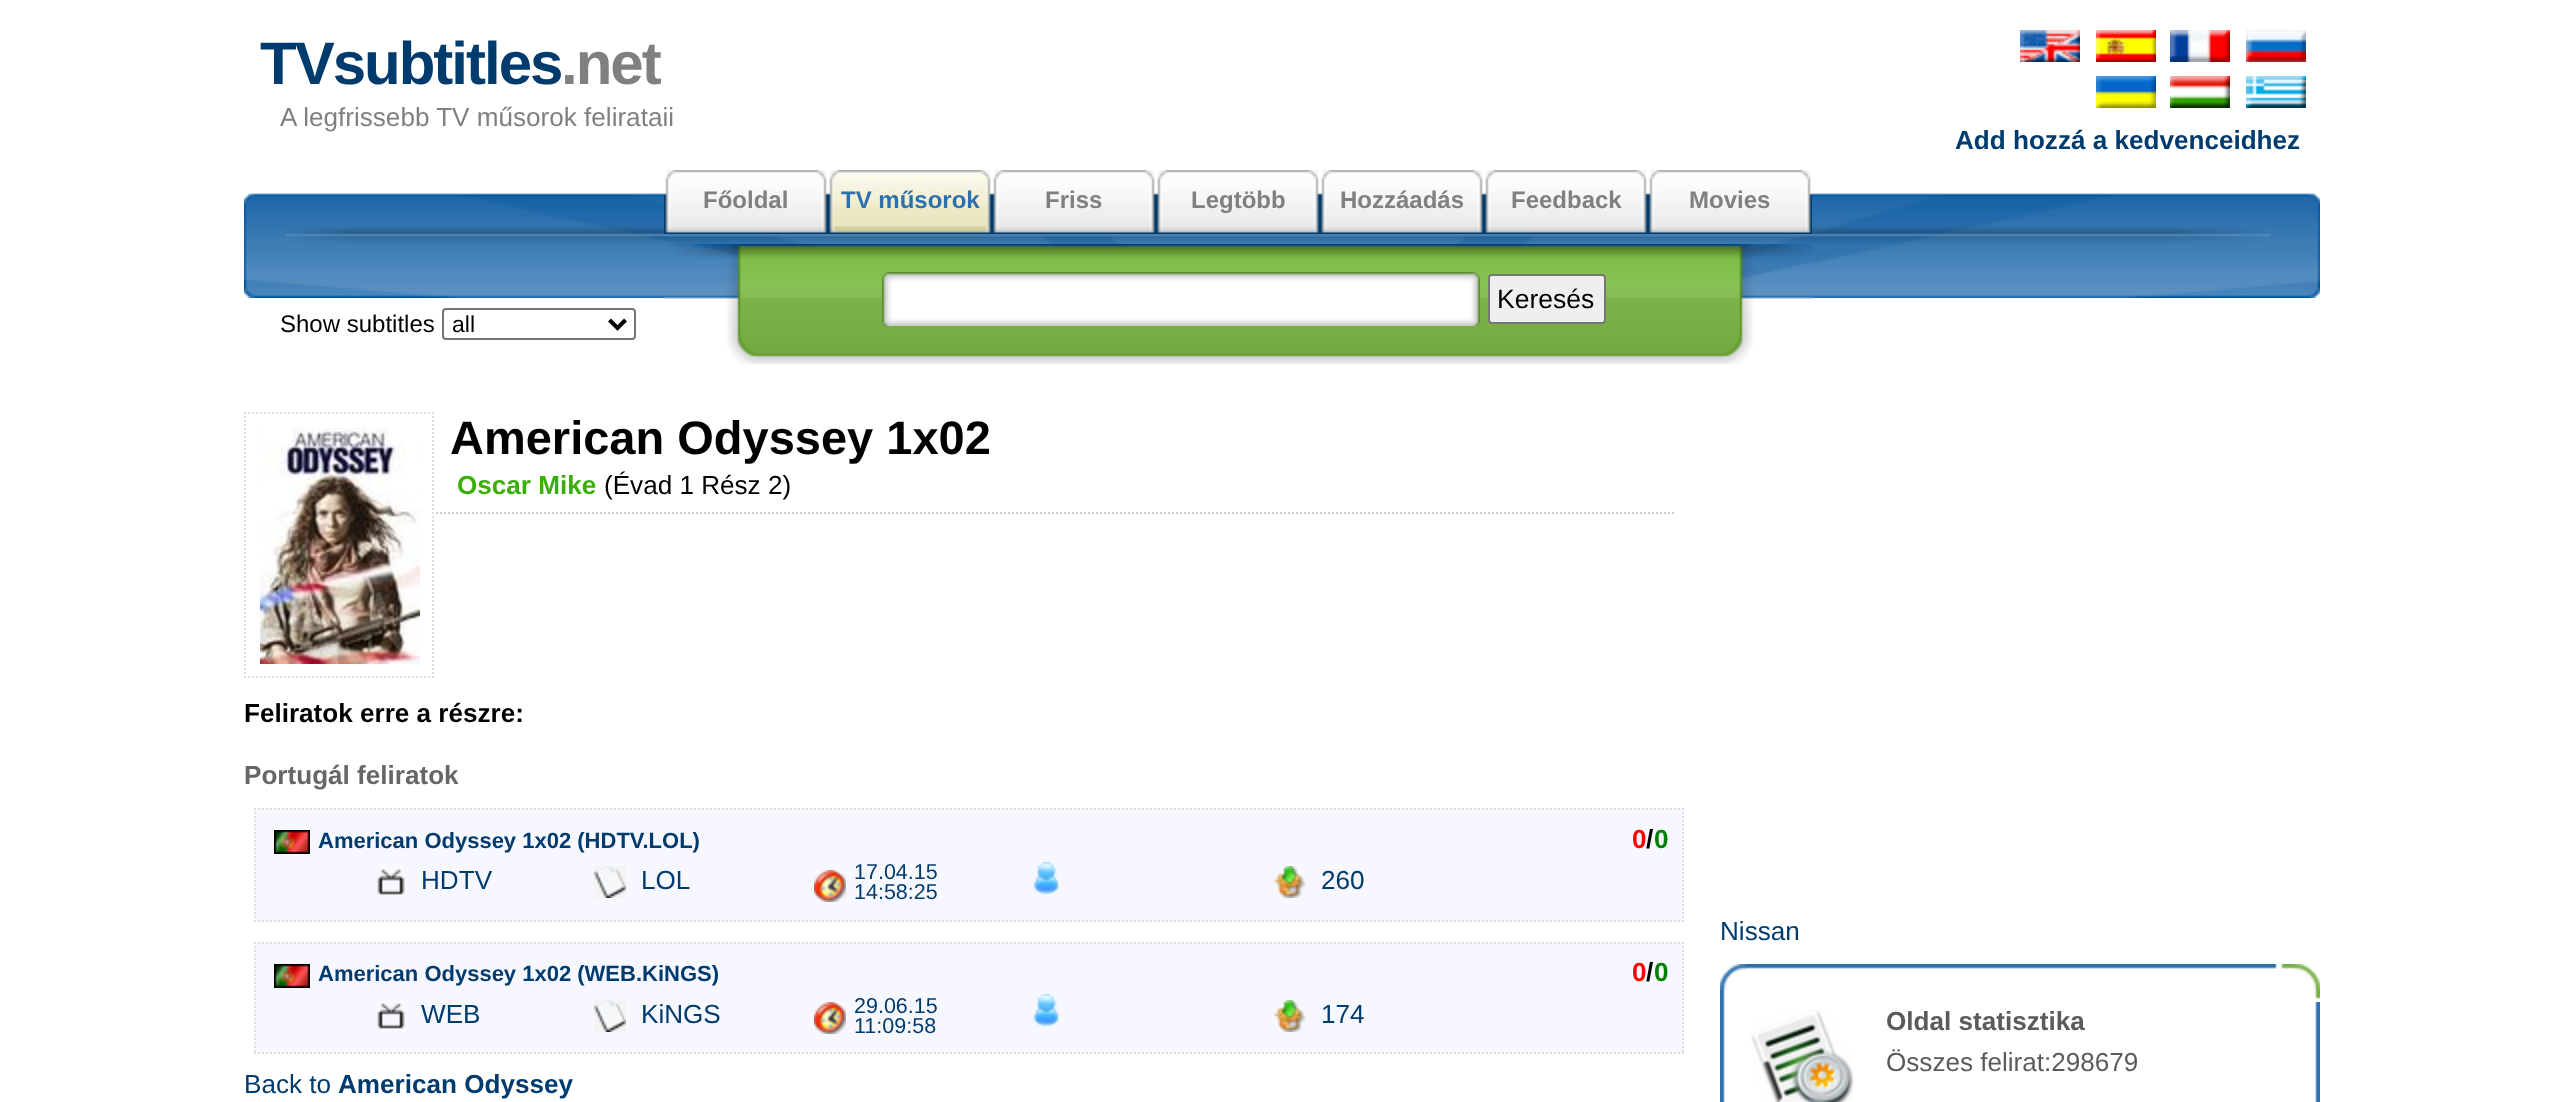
async function draw(canvas) {
  canvas.width = 2563
  canvas.height = 1102
  const ctx = canvas.getContext('2d')
  ctx.miterLimit = 4
  ctx.fontKerning = 'normal'
  async function loadImage(src) {
    const img = new Image()
    img.src = src
    await img.decode()
    return img
  }

  ctx.fillStyle = '#fff'
  ctx.fillRect(0, 0, 2563, 1102)
  ctx.letterSpacing = '-2px'
  ctx.font = 'bold 60px Liberation Sans'
  ctx.fillStyle = '#003b6e'
  ctx.fillText('TVsubtitles', 260, 84)
  ctx.fillStyle = '#808080'
  ctx.fillText('.net', 561, 84)
  ctx.letterSpacing = '0px'
  ctx.font = '26.1px Liberation Sans'
  ctx.fillText('A legfrissebb TV műsorok felirataii', 280, 126)
  ctx.drawImage(await loadImage('image0.png'), 2020, 30, 60, 32)
  ctx.drawImage(await loadImage('image1.png'), 2096, 30, 60, 32)
  ctx.drawImage(await loadImage('image2.png'), 2170, 30, 60, 32)
  ctx.drawImage(await loadImage('image3.png'), 2246, 30, 60, 32)
  ctx.drawImage(await loadImage('image4.png'), 2096, 76, 60, 32)
  ctx.drawImage(await loadImage('image5.png'), 2170, 76, 60, 32)
  ctx.drawImage(await loadImage('image6.png'), 2246, 76, 60, 32)
  ctx.font = 'bold 26.1px Liberation Sans'
  ctx.fillStyle = '#003b6e'
  ctx.fillText('Add hozzá a kedvenceidhez', 1955, 149)
  ctx.drawImage(await loadImage('image7.png'), 244, 193, 2076, 105)
  ctx.drawImage(await loadImage('image8.png'), 664, 170, 164, 64)
  ctx.font = 'bold 24px Liberation Sans'
  ctx.fillStyle = '#808080'
  ctx.fillText('Főoldal', 703, 208)
  ctx.drawImage(await loadImage('image9.png'), 828, 170, 164, 64)
  ctx.fillStyle = '#2c71ae'
  ctx.fillText('TV műsorok', 841, 208)
  ctx.drawImage(await loadImage('image8.png'), 992, 170, 164, 64)
  ctx.fillStyle = '#808080'
  ctx.fillText('Friss', 1045, 208)
  ctx.drawImage(await loadImage('image8.png'), 1156, 170, 164, 64)
  ctx.fillText('Legtöbb', 1191, 208)
  ctx.drawImage(await loadImage('image8.png'), 1320, 170, 164, 64)
  ctx.fillText('Hozzáadás', 1340, 208)
  ctx.drawImage(await loadImage('image8.png'), 1484, 170, 164, 64)
  ctx.fillText('Feedback', 1511, 208)
  ctx.drawImage(await loadImage('image8.png'), 1648, 170, 164, 64)
  ctx.fillText('Movies', 1689, 208)
  ctx.drawImage(await loadImage('image10.png'), 664, 244, 1150, 121)
  ctx.drawImage(await loadImage('image11.png'), 882, 272, 598, 54)
  ctx.fillStyle = '#efefef'
  ctx.beginPath()
  ctx.roundRect(1489, 275, 116, 48, 3)
  ctx.fill()
  ctx.strokeStyle = '#767676'
  ctx.lineWidth = 2
  ctx.stroke()
  ctx.font = '26.5px Liberation Sans'
  ctx.fillStyle = '#000'
  ctx.fillText('Keresés', 1497, 308)
  ctx.font = '24px Liberation Sans'
  ctx.fillText('Show subtitles', 280, 332)
  ctx.beginPath()
  ctx.roundRect(443, 309, 192, 30, 3)
  ctx.stroke()
  ctx.beginPath()
  ctx.moveTo(609.5, 320)
  ctx.lineTo(617.5, 328)
  ctx.lineTo(625.5, 320)
  ctx.strokeStyle = '#000'
  ctx.lineWidth = 4
  ctx.stroke()
  ctx.font = '23px Liberation Sans'
  ctx.fillText('all', 452, 332)
  ctx.beginPath()
  ctx.moveTo(244, 513)
  ctx.lineTo(1674, 513)
  ctx.strokeStyle = '#ccc'
  ctx.lineWidth = 2
  ctx.setLineDash([2, 2])
  ctx.stroke()
  ctx.fillStyle = '#fff'
  ctx.fillRect(244, 512, 190, 2)
  ctx.beginPath()
  ctx.moveTo(244, 413)
  ctx.lineTo(434, 413)
  ctx.strokeStyle = '#dedede'
  ctx.stroke()
  ctx.beginPath()
  ctx.moveTo(433, 412)
  ctx.lineTo(433, 678)
  ctx.stroke()
  ctx.beginPath()
  ctx.moveTo(244, 677)
  ctx.lineTo(434, 677)
  ctx.stroke()
  ctx.beginPath()
  ctx.moveTo(245, 412)
  ctx.lineTo(245, 678)
  ctx.stroke()
  ctx.drawImage(await loadImage('image12.png'), 260, 428, 160, 236)
  ctx.font = 'bold 47px Liberation Sans'
  ctx.fillStyle = '#000'
  ctx.fillText('American Odyssey 1x02', 450, 454)
  ctx.font = 'bold 26.1px Liberation Sans'
  ctx.fillStyle = '#3bae09'
  ctx.fillText('Oscar Mike', 457, 494)
  ctx.font = '26.1px Liberation Sans'
  ctx.fillStyle = '#000'
  ctx.fillText('(Évad 1 Rész 2)', 604, 494)
  ctx.font = 'bold 26.1px Liberation Sans'
  ctx.fillText('Feliratok erre a részre:', 244, 722)
  ctx.fillStyle = '#666'
  ctx.fillText('Portugál feliratok', 244, 784)
  ctx.fillStyle = '#f7f7ff'
  ctx.fillRect(254, 808, 1430, 114)
  ctx.beginPath()
  ctx.moveTo(254, 809)
  ctx.lineTo(1684, 809)
  ctx.stroke()
  ctx.beginPath()
  ctx.moveTo(1683, 808)
  ctx.lineTo(1683, 922)
  ctx.stroke()
  ctx.beginPath()
  ctx.moveTo(254, 921)
  ctx.lineTo(1684, 921)
  ctx.stroke()
  ctx.beginPath()
  ctx.moveTo(255, 808)
  ctx.lineTo(255, 922)
  ctx.stroke()
  ctx.drawImage(await loadImage('image13.png'), 274, 830, 36, 24)
  ctx.font = 'bold 22px Liberation Sans'
  ctx.fillStyle = '#003b6e'
  ctx.fillText('American Odyssey 1x02 (HDTV.LOL)', 318, 848)
  ctx.font = 'bold 26.1px Liberation Sans'
  ctx.fillStyle = '#f00'
  ctx.fillText('0', 1632, 848)
  ctx.fillStyle = '#000'
  ctx.fillText('/', 1646, 848)
  ctx.fillStyle = '#008000'
  ctx.fillText('0', 1654, 848)
  ctx.drawImage(await loadImage('image14.png'), 377, 868, 28, 28)
  ctx.font = '26.1px Liberation Sans'
  ctx.fillStyle = '#003b6e'
  ctx.fillText('HDTV', 421, 889)
  ctx.drawImage(await loadImage('image15.png'), 594, 866, 32, 32)
  ctx.fillText('LOL', 641, 889)
  ctx.drawImage(await loadImage('image16.png'), 814, 870, 32, 32)
  ctx.font = '21.5px Liberation Sans'
  ctx.fillText('17.04.15', 854, 879)
  ctx.fillText('14:58:25', 854, 899)
  ctx.drawImage(await loadImage('image17.png'), 1033, 862, 26, 32)
  ctx.drawImage(await loadImage('image18.png'), 1274, 866, 32, 32)
  ctx.font = '26.1px Liberation Sans'
  ctx.fillText('260', 1321, 889)
  ctx.fillStyle = '#f7f7ff'
  ctx.fillRect(254, 942, 1430, 112)
  ctx.beginPath()
  ctx.moveTo(254, 943)
  ctx.lineTo(1684, 943)
  ctx.stroke()
  ctx.beginPath()
  ctx.moveTo(1683, 942)
  ctx.lineTo(1683, 1054)
  ctx.stroke()
  ctx.beginPath()
  ctx.moveTo(254, 1053)
  ctx.lineTo(1684, 1053)
  ctx.stroke()
  ctx.beginPath()
  ctx.moveTo(255, 942)
  ctx.lineTo(255, 1054)
  ctx.stroke()
  ctx.drawImage(await loadImage('image13.png'), 274, 964, 36, 24)
  ctx.font = 'bold 22px Liberation Sans'
  ctx.fillStyle = '#003b6e'
  ctx.fillText('American Odyssey 1x02 (WEB.KiNGS)', 318, 981)
  ctx.font = 'bold 26.1px Liberation Sans'
  ctx.fillStyle = '#f00'
  ctx.fillText('0', 1632, 981)
  ctx.fillStyle = '#000'
  ctx.fillText('/', 1646, 981)
  ctx.fillStyle = '#008000'
  ctx.fillText('0', 1654, 981)
  ctx.drawImage(await loadImage('image14.png'), 377, 1002, 28, 28)
  ctx.font = '26.1px Liberation Sans'
  ctx.fillStyle = '#003b6e'
  ctx.fillText('WEB', 421, 1023)
  ctx.drawImage(await loadImage('image15.png'), 594, 1000, 32, 32)
  ctx.fillText('KiNGS', 641, 1023)
  ctx.drawImage(await loadImage('image16.png'), 814, 1002, 32, 32)
  ctx.font = '21.5px Liberation Sans'
  ctx.fillText('29.06.15', 854, 1013)
  ctx.fillText('11:09:58', 854, 1033)
  ctx.drawImage(await loadImage('image17.png'), 1033, 994, 26, 32)
  ctx.drawImage(await loadImage('image18.png'), 1274, 1000, 32, 32)
  ctx.font = '26.1px Liberation Sans'
  ctx.fillText('174', 1321, 1023)
  ctx.fillText('Back to', 244, 1093)
  ctx.font = 'bold 26.1px Liberation Sans'
  ctx.fillText('American Odyssey', 338, 1093)
  ctx.font = '26.1px Liberation Sans'
  ctx.fillText('Nissan', 1720, 940)
  ctx.drawImage(await loadImage('image19.png'), 1720, 964, 600, 38)
  ctx.drawImage(await loadImage('image20.png'), 1720, 1002, 600, 100)
  ctx.drawImage(await loadImage('image21.png'), 1751, 1010, 103, 92)
  ctx.font = 'bold 26.1px Liberation Sans'
  ctx.fillStyle = '#5b5b5b'
  ctx.fillText('Oldal statisztika', 1886, 1030)
  ctx.font = '26.1px Liberation Sans'
  ctx.fillText('Összes felirat:298679', 1886, 1071)
}

draw(document.querySelector('canvas'))
